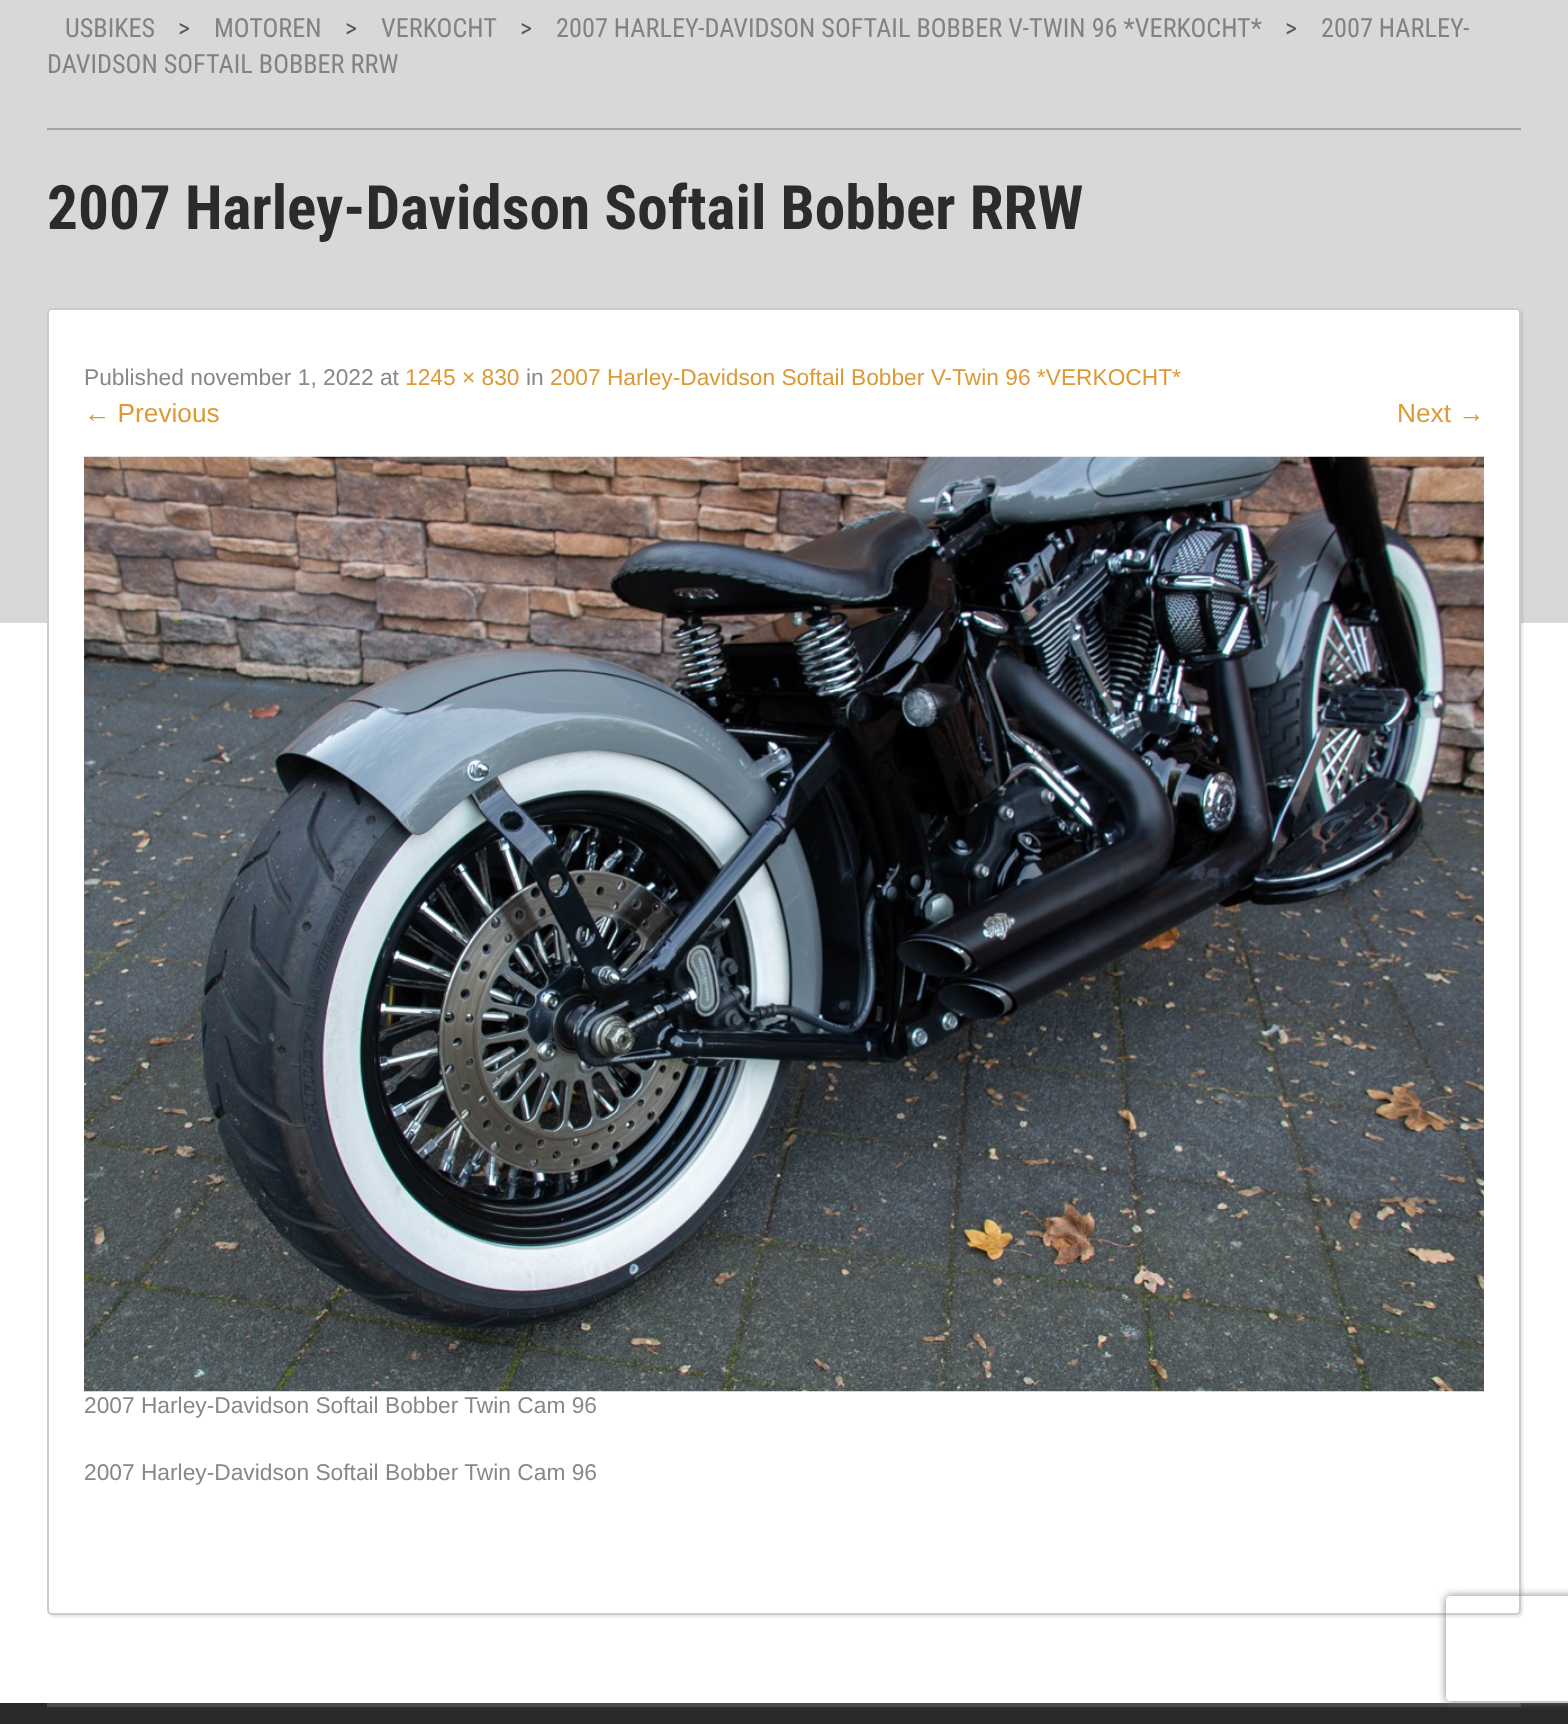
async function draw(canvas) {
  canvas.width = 1568
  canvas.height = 1724
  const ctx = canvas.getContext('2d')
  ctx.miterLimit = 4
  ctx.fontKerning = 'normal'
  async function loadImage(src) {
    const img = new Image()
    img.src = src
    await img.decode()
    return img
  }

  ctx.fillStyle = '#fff'
  ctx.fillRect(0, 0, 1568, 1724)
  ctx.fillStyle = '#d8d8d8'
  ctx.fillRect(0, 0, 1568, 623)
  ctx.fillStyle = '#a3a3a3'
  ctx.fillRect(47, 128, 1474, 2)
  ctx.font = '26.25px Roboto Condensed'
  ctx.fillStyle = '#828282'
  ctx.fillText('USBIKES', 65, 37)
  ctx.fillStyle = '#595959'
  ctx.fillText('>', 178, 37)
  ctx.fillStyle = '#828282'
  ctx.fillText('MOTOREN', 214, 37)
  ctx.fillStyle = '#595959'
  ctx.fillText('>', 345, 37)
  ctx.fillStyle = '#828282'
  ctx.fillText('VERKOCHT', 381, 37)
  ctx.fillStyle = '#595959'
  ctx.fillText('>', 520, 37)
  ctx.fillStyle = '#828282'
  ctx.fillText('2007 HARLEY-DAVIDSON SOFTAIL BOBBER V-TWIN 96 *VERKOCHT*', 556, 37)
  ctx.fillStyle = '#595959'
  ctx.fillText('>', 1285, 37)
  ctx.fillStyle = '#828282'
  ctx.fillText('2007 HARLEY-', 1321, 37)
  ctx.fillText('DAVIDSON SOFTAIL BOBBER RRW', 47, 73)
  ctx.font = 'bold 61.25px Roboto Condensed'
  ctx.fillStyle = '#2b2b2b'
  ctx.fillText('2007 Harley-Davidson Softail Bobber RRW', 47, 229)
  ctx.fillStyle = '#0000001a'
  ctx.filter = 'blur(1px)'
  ctx.beginPath()
  ctx.roundRect(49, 310, 1474, 1307, 5)
  ctx.fill()
  ctx.filter = 'none'
  ctx.fillStyle = '#fff'
  ctx.beginPath()
  ctx.roundRect(47, 308, 1474, 1307, 5)
  ctx.fill()
  ctx.beginPath()
  ctx.roundRect(48, 309, 1472, 1305, 4)
  ctx.strokeStyle = '#00000033'
  ctx.lineWidth = 2
  ctx.stroke()
  ctx.font = '22.75px Liberation Sans'
  ctx.fillStyle = '#888'
  ctx.fillText('Published november 1, 2022 at', 84, 385)
  ctx.fillStyle = '#d93'
  ctx.fillText('1245 × 830', 405, 385)
  ctx.fillStyle = '#888'
  ctx.fillText('in', 526, 385)
  ctx.fillStyle = '#d93'
  ctx.fillText('2007 Harley-Davidson Softail Bobber V-Twin 96 *VERKOCHT*', 550, 385)
  ctx.font = '26.25px Liberation Sans'
  ctx.fillText('← Previous', 84, 422)
  ctx.fillText('Next →', 1397, 422)
  ctx.drawImage(await loadImage('image0.png'), 84, 456, 1400, 936)
  ctx.font = '22.75px Liberation Sans'
  ctx.fillStyle = '#888'
  ctx.fillText('2007 Harley-Davidson Softail Bobber Twin Cam 96', 84, 1413)
  ctx.fillText('2007 Harley-Davidson Softail Bobber Twin Cam 96', 84, 1480)
  ctx.fillStyle = '#2a2a2a'
  ctx.fillRect(0, 1703, 1568, 21)
  ctx.fillStyle = '#4a4a4a'
  ctx.fillRect(47, 1703, 1474, 4)
  ctx.save()
  ctx.beginPath()
  ctx.moveTo(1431, 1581)
  ctx.lineTo(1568, 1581)
  ctx.lineTo(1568, 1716)
  ctx.lineTo(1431, 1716)
  ctx.closePath()
  ctx.moveTo(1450, 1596)
  ctx.lineTo(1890, 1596)
  ctx.bezierCurveTo(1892, 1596, 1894, 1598, 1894, 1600)
  ctx.lineTo(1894, 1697)
  ctx.bezierCurveTo(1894, 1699, 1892, 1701, 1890, 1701)
  ctx.lineTo(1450, 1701)
  ctx.bezierCurveTo(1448, 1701, 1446, 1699, 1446, 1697)
  ctx.lineTo(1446, 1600)
  ctx.bezierCurveTo(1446, 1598, 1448, 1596, 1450, 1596)
  ctx.closePath()
  ctx.clip('evenodd')
  ctx.fillStyle = '#808080'
  ctx.filter = 'blur(4.5px)'
  ctx.beginPath()
  ctx.roundRect(1446, 1596, 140, 105, 4)
  ctx.fill()
  ctx.filter = 'none'
  ctx.restore()
}

draw(document.querySelector('canvas'))
